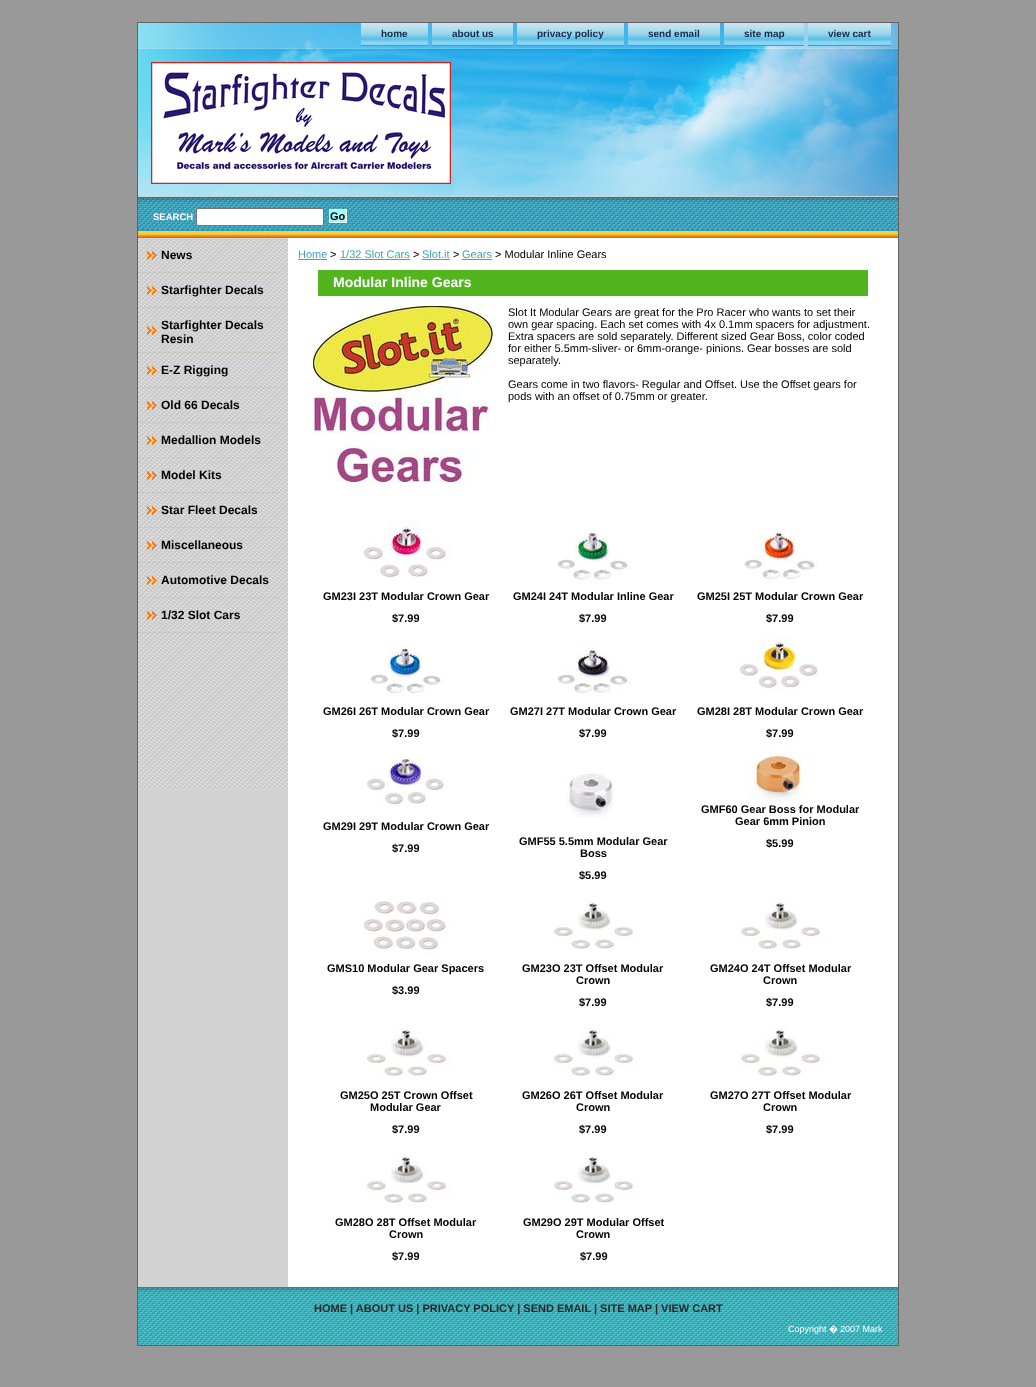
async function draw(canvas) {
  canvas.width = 1036
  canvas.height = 1387
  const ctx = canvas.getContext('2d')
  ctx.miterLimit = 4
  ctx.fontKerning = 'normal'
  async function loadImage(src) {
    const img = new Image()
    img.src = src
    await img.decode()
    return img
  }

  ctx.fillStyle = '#999'
  ctx.fillRect(0, 0, 1036, 1387)
  ctx.strokeStyle = '#626262'
  ctx.strokeRect(137.5, 22.5, 761, 1323)
  ctx.drawImage(await loadImage('image0.png'), 138, 23, 760, 173)
  ctx.drawImage(await loadImage('image1.png'), 361, 23, 67, 23)
  ctx.font = 'bold 10px Liberation Sans'
  ctx.fillStyle = '#162b47'
  ctx.fillText('home', 381, 37)
  ctx.drawImage(await loadImage('image2.png'), 432, 23, 81, 23)
  ctx.fillText('about us', 452, 37)
  ctx.drawImage(await loadImage('image3.png'), 517, 23, 107, 23)
  ctx.fillText('privacy policy', 537, 37)
  ctx.drawImage(await loadImage('image4.png'), 628, 23, 92, 23)
  ctx.fillText('send email', 648, 37)
  ctx.drawImage(await loadImage('image5.png'), 724, 23, 80, 23)
  ctx.fillText('site map', 744, 37)
  ctx.drawImage(await loadImage('image6.png'), 808, 23, 83, 23)
  ctx.fillText('view cart', 828, 37)
  ctx.drawImage(await loadImage('image7.png'), 151, 62, 300, 122)
  ctx.drawImage(await loadImage('image8.png'), 138, 196, 760, 42)
  ctx.font = 'bold 9.5px Liberation Sans'
  ctx.fillStyle = '#fff'
  ctx.fillText('SEARCH', 153, 220)
  ctx.beginPath()
  ctx.roundRect(196.5, 208.5, 127, 17, 1.5)
  ctx.fill()
  ctx.strokeStyle = '#767676'
  ctx.stroke()
  ctx.fillStyle = '#9ff'
  ctx.beginPath()
  ctx.rect(329.5, 209.5, 17, 13)
  ctx.fill()
  ctx.strokeStyle = '#fff'
  ctx.stroke()
  ctx.font = 'bold 11px Liberation Sans'
  ctx.fillStyle = '#000'
  ctx.fillText('Go', 330, 220)
  ctx.fillStyle = '#fff'
  ctx.fillRect(288, 238, 610, 1049)
  ctx.fillStyle = '#d3d3d3'
  ctx.fillRect(138, 788, 150, 499)
  ctx.drawImage(await loadImage('image9.png'), 138, 238, 150, 550)
  ctx.drawImage(await loadImage('image10.png'), 147, 251, 10, 9)
  ctx.beginPath()
  ctx.moveTo(138, 272.5)
  ctx.lineTo(278, 272.5)
  ctx.strokeStyle = '#bfc5b7'
  ctx.setLineDash([1, 1])
  ctx.stroke()
  ctx.font = 'bold 12px Liberation Sans'
  ctx.fillStyle = '#000'
  ctx.fillText('News', 161, 259)
  ctx.drawImage(await loadImage('image11.png'), 147, 286, 10, 9)
  ctx.beginPath()
  ctx.moveTo(138, 307.5)
  ctx.lineTo(278, 307.5)
  ctx.stroke()
  ctx.fillText('Starfighter Decals', 161, 294)
  ctx.drawImage(await loadImage('image11.png'), 147, 326, 10, 9)
  ctx.beginPath()
  ctx.moveTo(138, 352.5)
  ctx.lineTo(278, 352.5)
  ctx.stroke()
  ctx.fillText('Starfighter Decals', 161, 329)
  ctx.fillText('Resin', 161, 343)
  ctx.drawImage(await loadImage('image11.png'), 147, 366, 10, 9)
  ctx.beginPath()
  ctx.moveTo(138, 387.5)
  ctx.lineTo(278, 387.5)
  ctx.stroke()
  ctx.fillText('E-Z Rigging', 161, 374)
  ctx.drawImage(await loadImage('image10.png'), 147, 401, 10, 9)
  ctx.beginPath()
  ctx.moveTo(138, 422.5)
  ctx.lineTo(278, 422.5)
  ctx.stroke()
  ctx.fillText('Old 66 Decals', 161, 409)
  ctx.drawImage(await loadImage('image11.png'), 147, 436, 10, 9)
  ctx.beginPath()
  ctx.moveTo(138, 457.5)
  ctx.lineTo(278, 457.5)
  ctx.stroke()
  ctx.fillText('Medallion Models', 161, 444)
  ctx.drawImage(await loadImage('image10.png'), 147, 471, 10, 9)
  ctx.beginPath()
  ctx.moveTo(138, 492.5)
  ctx.lineTo(278, 492.5)
  ctx.stroke()
  ctx.fillText('Model Kits', 161, 479)
  ctx.drawImage(await loadImage('image11.png'), 147, 506, 10, 9)
  ctx.beginPath()
  ctx.moveTo(138, 527.5)
  ctx.lineTo(278, 527.5)
  ctx.stroke()
  ctx.fillText('Star Fleet Decals', 161, 514)
  ctx.drawImage(await loadImage('image10.png'), 147, 541, 10, 9)
  ctx.beginPath()
  ctx.moveTo(138, 562.5)
  ctx.lineTo(278, 562.5)
  ctx.stroke()
  ctx.fillText('Miscellaneous', 161, 549)
  ctx.drawImage(await loadImage('image11.png'), 147, 576, 10, 9)
  ctx.beginPath()
  ctx.moveTo(138, 597.5)
  ctx.lineTo(278, 597.5)
  ctx.stroke()
  ctx.fillText('Automotive Decals', 161, 584)
  ctx.drawImage(await loadImage('image10.png'), 147, 611, 10, 9)
  ctx.beginPath()
  ctx.moveTo(138, 632.5)
  ctx.lineTo(278, 632.5)
  ctx.stroke()
  ctx.fillText('1/32 Slot Cars', 161, 619)
  ctx.font = '11px Liberation Sans'
  ctx.fillStyle = '#47a1b8'
  ctx.fillText('Home', 298, 258)
  ctx.fillRect(298, 259, 29, 1)
  ctx.fillStyle = '#000'
  ctx.fillText('>', 330, 258)
  ctx.fillStyle = '#47a1b8'
  ctx.fillText('1/32 Slot Cars', 340, 258)
  ctx.fillRect(340, 259, 70, 1)
  ctx.fillStyle = '#000'
  ctx.fillText('>', 413, 258)
  ctx.fillStyle = '#47a1b8'
  ctx.fillText('Slot.it', 422, 258)
  ctx.fillRect(422, 259, 28, 1)
  ctx.fillStyle = '#000'
  ctx.fillText('>', 453, 258)
  ctx.fillStyle = '#47a1b8'
  ctx.fillText('Gears', 462, 258)
  ctx.fillRect(462, 259, 30, 1)
  ctx.fillStyle = '#000'
  ctx.fillText('> Modular Inline Gears', 495, 258)
  ctx.fillStyle = '#52b51e'
  ctx.fillRect(318, 270, 550, 26)
  ctx.font = 'bold 14px Liberation Sans'
  ctx.fillStyle = '#fff'
  ctx.fillText('Modular Inline Gears', 333, 287)
  ctx.drawImage(await loadImage('image12.png'), 313, 306, 180, 176)
  ctx.font = '11px Liberation Sans'
  ctx.fillStyle = '#000'
  ctx.fillText('Slot It Modular Gears are great for the Pro Racer who wants to set their', 508, 316)
  ctx.fillText('own gear spacing. Each set comes with 4x 0.1mm spacers for adjustment.', 508, 328)
  ctx.fillText('Extra spacers are sold separately. Different sized Gear Boss, color coded', 508, 340)
  ctx.fillText('for either 5.5mm-sliver- or 6mm-orange- pinions. Gear bosses are sold', 508, 352)
  ctx.fillText('separately.', 508, 364)
  ctx.fillText('Gears come in two flavors- Regular and Offset. Use the Offset gears for', 508, 388)
  ctx.fillText('pods with an offset of 0.75mm or greater.', 508, 400)
  ctx.drawImage(await loadImage('image13.png'), 363, 521, 89, 56)
  ctx.font = 'bold 11px Liberation Sans'
  ctx.fillText('GM23I 23T Modular Crown Gear', 323, 600)
  ctx.fillText('$7.99', 392, 622)
  ctx.drawImage(await loadImage('image14.png'), 557, 529, 74, 55)
  ctx.fillText('GM24I 24T Modular Inline Gear', 513, 600)
  ctx.fillText('$7.99', 579, 622)
  ctx.drawImage(await loadImage('image15.png'), 744, 529, 74, 55)
  ctx.fillText('GM25I 25T Modular Crown Gear', 697, 600)
  ctx.fillText('$7.99', 766, 622)
  ctx.drawImage(await loadImage('image16.png'), 370, 644, 74, 52)
  ctx.fillText('GM26I 26T Modular Crown Gear', 323, 715)
  ctx.fillText('$7.99', 392, 737)
  ctx.drawImage(await loadImage('image17.png'), 557, 644, 74, 50)
  ctx.fillText('GM27I 27T Modular Crown Gear', 510, 715)
  ctx.fillText('$7.99', 579, 737)
  ctx.drawImage(await loadImage('image18.png'), 738, 636, 80, 55)
  ctx.fillText('GM28I 28T Modular Crown Gear', 697, 715)
  ctx.fillText('$7.99', 766, 737)
  ctx.drawImage(await loadImage('image19.png'), 366, 751, 78, 56)
  ctx.fillText('GM29I 29T Modular Crown Gear', 323, 830)
  ctx.fillText('$7.99', 392, 852)
  ctx.drawImage(await loadImage('image20.png'), 567, 773, 48, 45)
  ctx.fillText('GMF55 5.5mm Modular Gear', 519, 845)
  ctx.fillText('Boss', 580, 857)
  ctx.fillText('$5.99', 579, 879)
  ctx.drawImage(await loadImage('image21.png'), 746, 751, 64, 50)
  ctx.fillText('GMF60 Gear Boss for Modular', 701, 813)
  ctx.fillText('Gear 6mm Pinion', 735, 825)
  ctx.fillText('$5.99', 766, 847)
  ctx.drawImage(await loadImage('image22.png'), 363, 901, 89, 55)
  ctx.fillText('GMS10 Modular Gear Spacers', 327, 972)
  ctx.fillText('$3.99', 392, 994)
  ctx.drawImage(await loadImage('image23.png'), 551, 901, 88, 48)
  ctx.fillText('GM23O 23T Offset Modular', 522, 972)
  ctx.fillText('Crown', 576, 984)
  ctx.fillText('$7.99', 579, 1006)
  ctx.drawImage(await loadImage('image23.png'), 738, 901, 88, 48)
  ctx.fillText('GM24O 24T Offset Modular', 710, 972)
  ctx.fillText('Crown', 763, 984)
  ctx.fillText('$7.99', 766, 1006)
  ctx.drawImage(await loadImage('image23.png'), 364, 1028, 88, 48)
  ctx.fillText('GM25O 25T Crown Offset', 340, 1099)
  ctx.fillText('Modular Gear', 370, 1111)
  ctx.fillText('$7.99', 392, 1133)
  ctx.drawImage(await loadImage('image23.png'), 551, 1028, 88, 48)
  ctx.fillText('GM26O 26T Offset Modular', 522, 1099)
  ctx.fillText('Crown', 576, 1111)
  ctx.fillText('$7.99', 579, 1133)
  ctx.drawImage(await loadImage('image23.png'), 738, 1028, 88, 48)
  ctx.fillText('GM27O 27T Offset Modular', 710, 1099)
  ctx.fillText('Crown', 763, 1111)
  ctx.fillText('$7.99', 766, 1133)
  ctx.drawImage(await loadImage('image23.png'), 364, 1155, 88, 48)
  ctx.fillText('GM28O 28T Offset Modular', 335, 1226)
  ctx.fillText('Crown', 389, 1238)
  ctx.fillText('$7.99', 392, 1260)
  ctx.drawImage(await loadImage('image23.png'), 551, 1155, 88, 48)
  ctx.fillText('GM29O 29T Modular Offset', 523, 1226)
  ctx.fillText('Crown', 576, 1238)
  ctx.fillText('$7.99', 580, 1260)
  ctx.drawImage(await loadImage('image24.png'), 138, 1287, 760, 58)
  ctx.fillStyle = '#282828'
  ctx.fillText('HOME | ABOUT US | PRIVACY POLICY | SEND EMAIL | SITE MAP | VIEW CART', 314, 1312)
  ctx.font = '9px Liberation Sans'
  ctx.fillStyle = '#fff'
  ctx.fillText('Copyright', 788, 1332)
  ctx.font = '9px Noto Sans'
  ctx.fillText('�', 829, 1332)
  ctx.font = '9px Liberation Sans'
  ctx.fillText('2007 Mark', 840, 1332)
}

draw(document.querySelector('canvas'))
